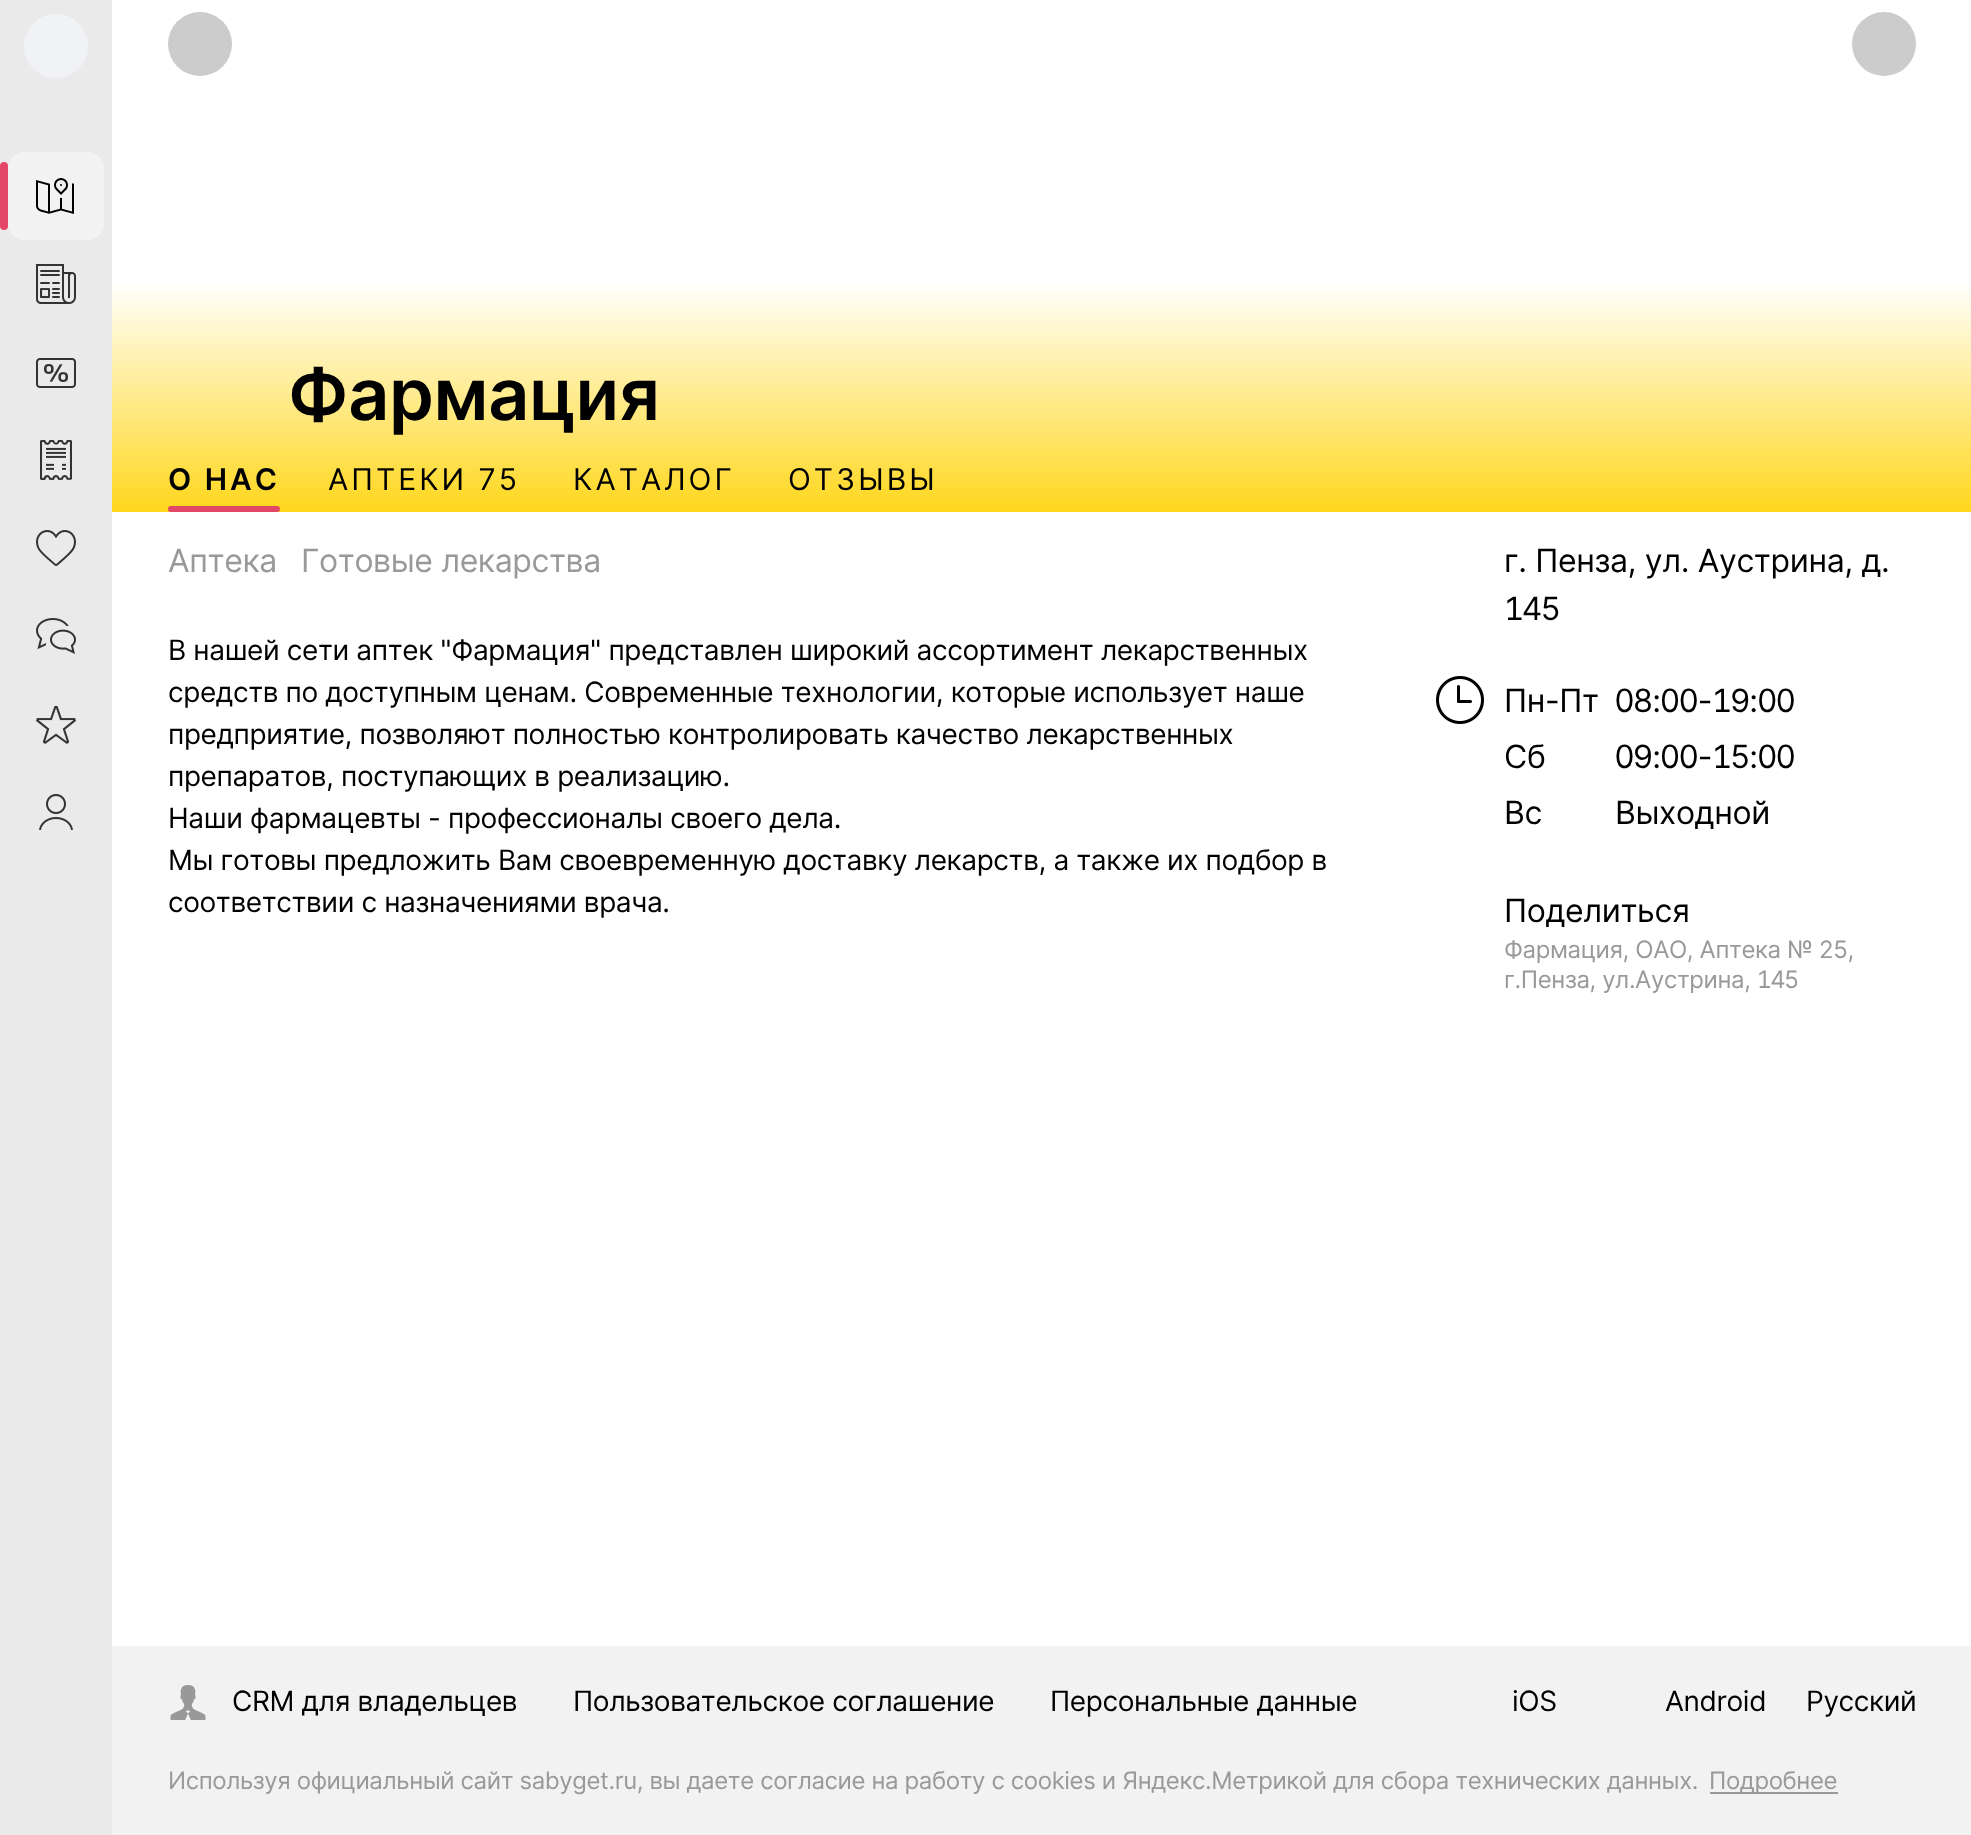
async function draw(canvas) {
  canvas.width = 1971
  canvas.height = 1835
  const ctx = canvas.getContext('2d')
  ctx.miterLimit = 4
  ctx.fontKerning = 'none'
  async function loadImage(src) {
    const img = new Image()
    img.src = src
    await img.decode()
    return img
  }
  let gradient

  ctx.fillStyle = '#fff'
  ctx.fillRect(0, 0, 1971, 1835)
  ctx.fillStyle = '#eaeaea'
  ctx.fillRect(0, 0, 112, 1835)
  ctx.fillStyle = '#f1f2f5'
  ctx.beginPath()
  ctx.arc(56, 46, 31, 0, 2 * Math.PI)
  ctx.fill()
  ctx.strokeStyle = '#f1f2f5'
  ctx.lineWidth = 2
  ctx.stroke()
  ctx.fillStyle = '#e44766'
  ctx.beginPath()
  ctx.roundRect(0, 162, 8, 68, 4)
  ctx.fill()
  ctx.fillStyle = '#f2f2f2'
  ctx.beginPath()
  ctx.roundRect(8, 152, 96, 88, 16)
  ctx.fill()
  ctx.letterSpacing = '-0.39px'
  ctx.font = '40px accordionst'
  ctx.fillStyle = '#000'
  ctx.fillText('Map', 36, 216)
  ctx.drawImage(await loadImage('image0.png'), 36, 264, 40, 40)
  ctx.drawImage(await loadImage('image1.png'), 36, 358, 40, 30)
  ctx.drawImage(await loadImage('image2.png'), 40, 440, 32, 40)
  ctx.drawImage(await loadImage('image3.png'), 36, 530, 40, 36)
  ctx.drawImage(await loadImage('image4.png'), 36, 618, 40, 36)
  ctx.drawImage(await loadImage('image5.png'), 36, 706, 40, 38)
  ctx.drawImage(await loadImage('image6.png'), 39, 794, 34, 36)
  ctx.fillStyle = '#ccc'
  ctx.beginPath()
  ctx.arc(200, 44, 32, 0, 2 * Math.PI)
  ctx.fill()
  ctx.beginPath()
  ctx.arc(1884, 44, 32, 0, 2 * Math.PI)
  ctx.fill()
  gradient = ctx.createLinearGradient(1042, 512, 1042, 0)
  gradient.addColorStop(0, '#ffd71c')
  gradient.addColorStop(0.45, '#fff')
  ctx.fillStyle = gradient
  ctx.fillRect(112, 284, 1859, 228)
  ctx.font = '600 72px Inter'
  ctx.fillStyle = '#000'
  ctx.fillText('Фармация', 288, 420)
  ctx.letterSpacing = '3px'
  ctx.font = '600 30px Inter'
  ctx.fillText('О НАС', 168, 490)
  ctx.fillStyle = '#e44766'
  ctx.beginPath()
  ctx.roundRect(168, 506, 112, 6, 3)
  ctx.fill()
  ctx.font = '30px Inter'
  ctx.fillStyle = '#000'
  ctx.fillText('АПТЕКИ 75', 328, 490)
  ctx.fillText('КАТАЛОГ', 573, 490)
  ctx.fillText('ОТЗЫВЫ', 788, 490)
  ctx.letterSpacing = '-0.39px'
  ctx.font = '32px Inter'
  ctx.fillStyle = '#999'
  ctx.fillText('Аптека', 168, 572)
  ctx.fillText('Готовые лекарства', 301, 572)
  ctx.font = '28px Inter'
  ctx.fillStyle = '#000'
  ctx.fillText('В нашей сети аптек "Фармация" представлен широкий ассортимент лекарственных', 168, 660)
  ctx.fillText('средств по доступным ценам. Современные технологии, которые использует наше', 168, 702)
  ctx.fillText('предприятие, позволяют полностью контролировать качество лекарственных', 168, 744)
  ctx.fillText('препаратов, поступающих в реализацию.', 168, 786)
  ctx.fillText('Наши фармацевты - профессионалы своего дела.', 168, 828)
  ctx.fillText('Мы готовы предложить Вам своевременную доставку лекарств, а также их подбор в', 168, 870)
  ctx.fillText('соответствии с назначениями врача.', 168, 912)
  ctx.font = '32px Inter'
  ctx.fillText('г. Пенза, ул. Аустрина, д.', 1504, 572)
  ctx.font = '32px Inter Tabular'
  ctx.fillText('145', 1504, 620)
  ctx.drawImage(await loadImage('image7.png'), 1436, 676, 48, 48)
  ctx.font = '32px Inter'
  ctx.fillText('Пн-Пт', 1504, 712)
  ctx.font = '32px Inter Tabular'
  ctx.fillText('08:00-19:00', 1615, 712)
  ctx.font = '32px Inter'
  ctx.fillText('Сб', 1504, 768)
  ctx.font = '32px Inter Tabular'
  ctx.fillText('09:00-15:00', 1615, 768)
  ctx.font = '32px Inter'
  ctx.fillText('Вс', 1504, 824)
  ctx.fillText('Выходной', 1615, 824)
  ctx.fillText('Поделиться', 1504, 922)
  ctx.font = '24px Inter'
  ctx.fillStyle = '#999'
  ctx.fillText('Фармация, ОАО, Аптека № 25,', 1504, 958)
  ctx.font = '24px Inter Tabular'
  ctx.fillText('г.Пенза, ул.Аустрина, 145', 1504, 988)
  ctx.fillStyle = '#f2f2f2'
  ctx.fillRect(112, 1646, 1859, 189)
  ctx.drawImage(await loadImage('image8.png'), 170, 1685, 36, 35)
  ctx.font = '28px Inter'
  ctx.fillStyle = '#000'
  ctx.fillText('CRM для владельцев', 232, 1711)
  ctx.fillText('Пользовательское соглашение', 573, 1711)
  ctx.fillText('Персональные данные', 1050, 1711)
  ctx.fillText('iOS', 1512, 1711)
  ctx.fillText('Android', 1665, 1711)
  ctx.fillText('Русский', 1806, 1711)
  ctx.font = '24px Inter'
  ctx.fillStyle = '#999'
  ctx.fillText('Используя официальный сайт sabyget.ru, вы даете согласие на работу с cookies и Яндекс.Метрикой для сбора технических данных.', 168, 1789)
  ctx.fillRect(1710, 1792, 128, 2)
  ctx.fillText('Подробнее', 1709, 1789)
}

draw(document.querySelector('canvas'))
